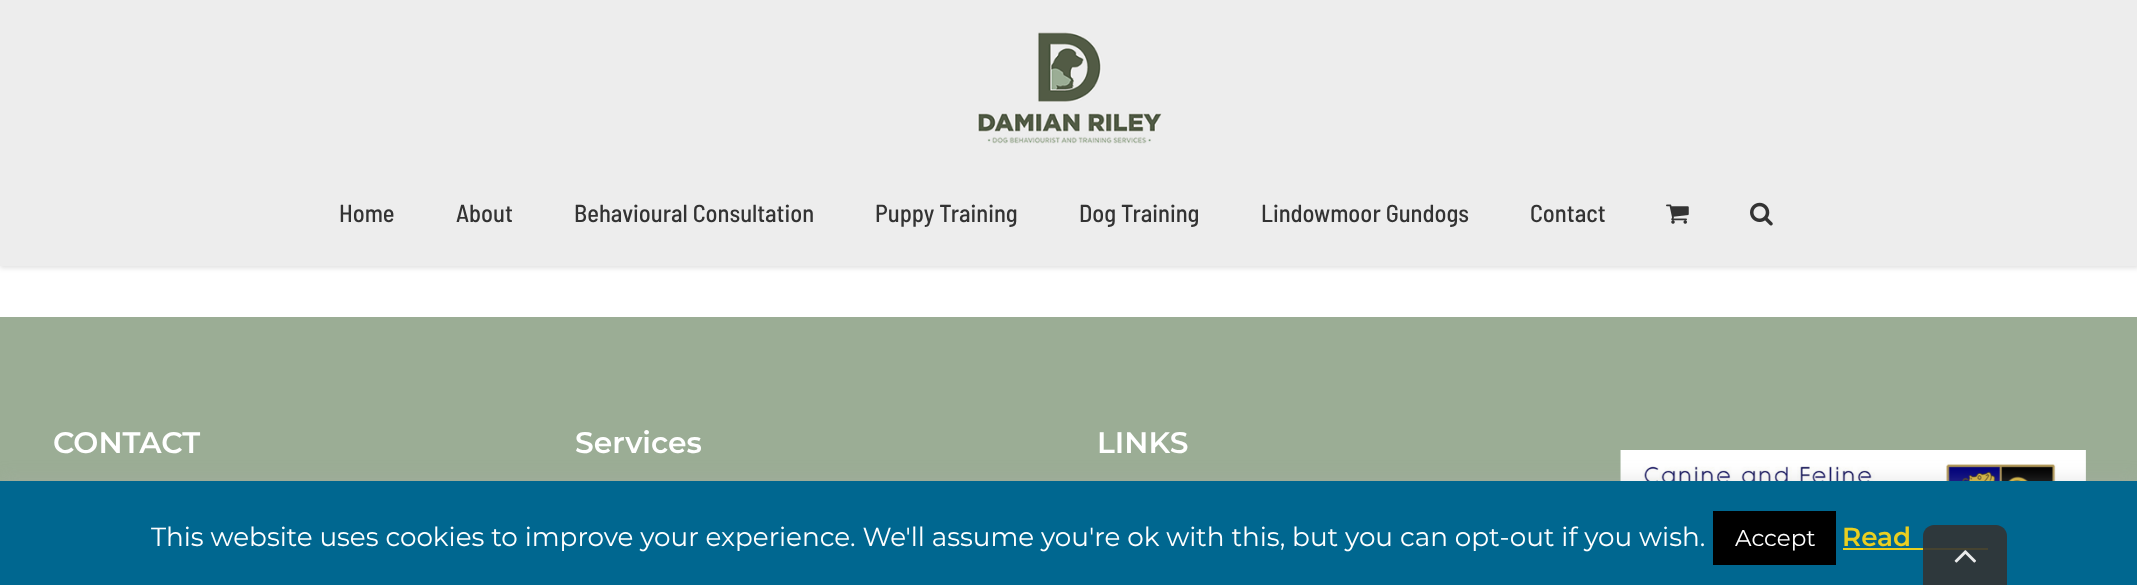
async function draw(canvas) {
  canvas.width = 2137
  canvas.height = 585
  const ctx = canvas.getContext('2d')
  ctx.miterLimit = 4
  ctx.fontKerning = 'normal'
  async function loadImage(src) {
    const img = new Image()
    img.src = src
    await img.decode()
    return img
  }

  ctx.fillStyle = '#fff'
  ctx.fillRect(0, 0, 2137, 585)
  ctx.fillStyle = '#0000001f'
  ctx.filter = 'blur(2.5px)'
  ctx.beginPath()
  ctx.rect(0, 2, 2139, 266)
  ctx.fill()
  ctx.filter = 'none'
  ctx.fillStyle = '#ededed'
  ctx.fillRect(0, 0, 2137, 266)
  ctx.drawImage(await loadImage('image0.png'), 977, 32, 185, 112)
  ctx.font = '500 24.5px Barlow Semi Condensed'
  ctx.fillStyle = '#333'
  ctx.fillText('Home', 339, 222)
  ctx.fillText('About', 456, 222)
  ctx.fillText('Behavioural Consultation', 574, 222)
  ctx.fillText('Puppy Training', 875, 222)
  ctx.fillText('Dog Training', 1079, 222)
  ctx.fillText('Lindowmoor Gundogs', 1261, 222)
  ctx.fillText('Contact', 1530, 222)
  ctx.drawImage(await loadImage('image1.png'), 1666, 204, 23, 20)
  ctx.drawImage(await loadImage('image2.png'), 1750, 202, 23, 24)
  ctx.fillStyle = '#9bad95'
  ctx.fillRect(0, 317, 2137, 164)
  ctx.font = '600 29.75px Montserrat'
  ctx.fillStyle = '#fff'
  ctx.fillText('CONTACT', 53, 453)
  ctx.fillText('Services', 575, 453)
  ctx.fillText('LINKS', 1097, 453)
  ctx.drawImage(await loadImage('image3.png'), 1620, 450, 466, 31)
  ctx.fillStyle = '#acabab4d'
  ctx.filter = 'blur(9px)'
  ctx.beginPath()
  ctx.rect(0, 480, 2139, 105)
  ctx.fill()
  ctx.filter = 'none'
  ctx.fillStyle = '#006790'
  ctx.fillRect(0, 481, 2137, 104)
  ctx.font = '26.25px Montserrat'
  ctx.fillStyle = '#fff'
  ctx.fillText('This website uses cookies to improve your experience. We\'ll assume you\'re ok with this, but you can opt-out if you wish.', 151, 546)
  ctx.fillStyle = '#000'
  ctx.fillRect(1713, 511, 123, 54)
  ctx.font = '23px Montserrat'
  ctx.fillStyle = '#fff'
  ctx.fillText('Accept', 1735, 546)
  ctx.font = '600 26.25px Montserrat'
  ctx.fillStyle = '#eacf20'
  ctx.fillText('Read', 1842, 546)
  ctx.fillRect(1843, 548, 145, 2)
  ctx.fillStyle = '#333333e6'
  ctx.beginPath()
  ctx.moveTo(1934, 525)
  ctx.lineTo(1996, 525)
  ctx.bezierCurveTo(2002, 525, 2007, 530, 2007, 536)
  ctx.lineTo(2007, 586)
  ctx.lineTo(1923, 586)
  ctx.lineTo(1923, 536)
  ctx.bezierCurveTo(1923, 530, 1928, 525, 1934, 525)
  ctx.closePath()
  ctx.fill()
  ctx.drawImage(await loadImage('image4.png'), 1954, 550, 22, 13)
}

draw(document.querySelector('canvas'))
